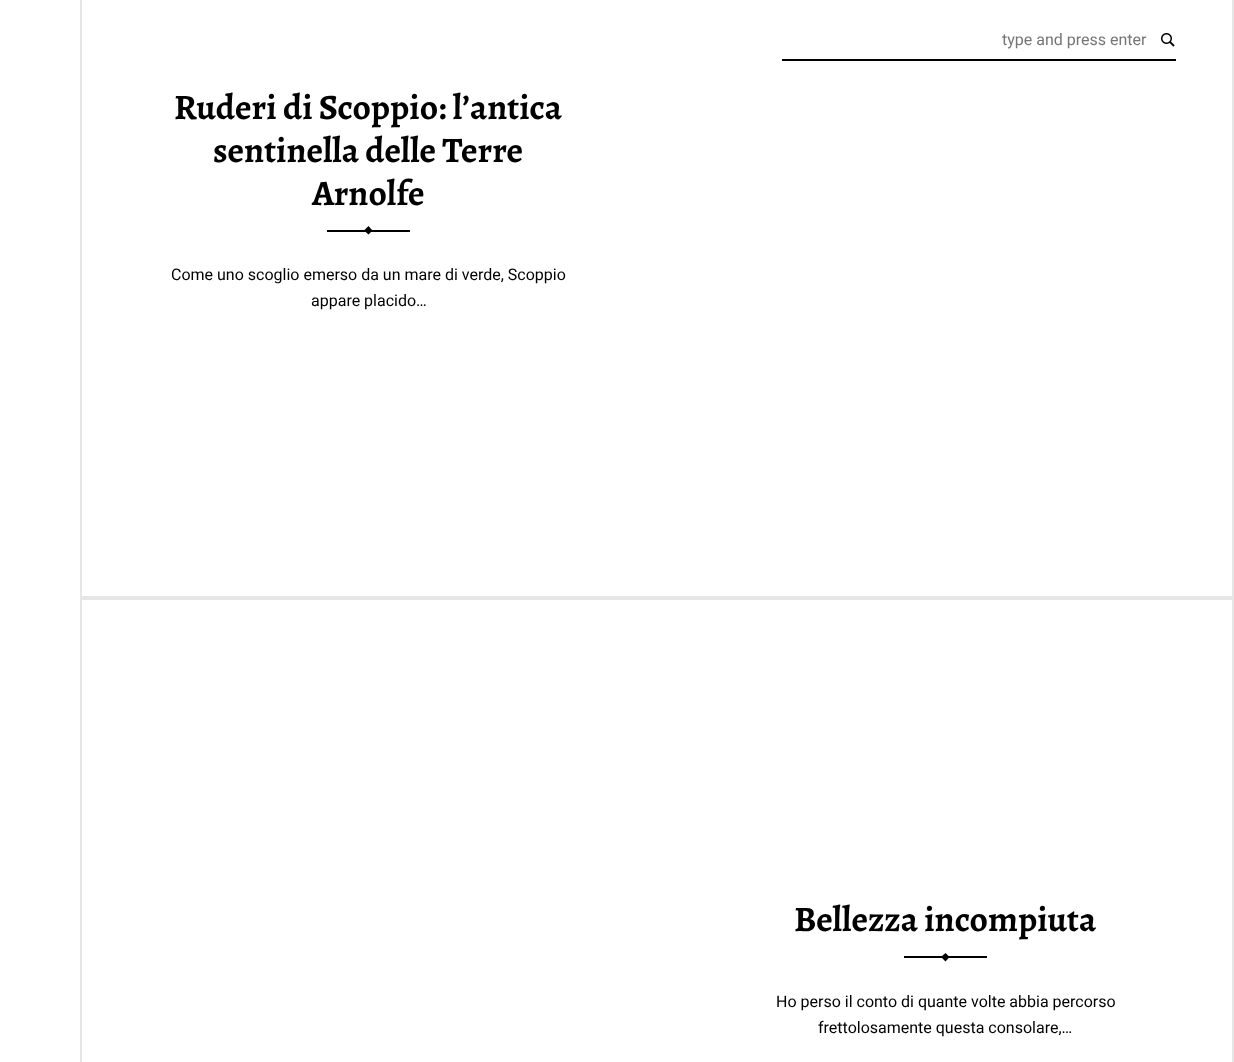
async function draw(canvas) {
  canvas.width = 1234
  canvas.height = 1062
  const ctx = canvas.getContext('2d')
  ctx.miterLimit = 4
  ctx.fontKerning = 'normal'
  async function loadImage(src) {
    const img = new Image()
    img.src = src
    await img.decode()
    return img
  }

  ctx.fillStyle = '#fff'
  ctx.fillRect(0, 0, 1234, 1062)
  ctx.fillStyle = '#000'
  ctx.fillRect(327, 230, 83, 2)
  ctx.beginPath()
  ctx.moveTo(368.5, 226)
  ctx.lineTo(372.5, 230.5)
  ctx.lineTo(368.5, 234.5)
  ctx.lineTo(364, 230.5)
  ctx.closePath()
  ctx.fill()
  ctx.strokeStyle = '#e6e6e6'
  ctx.lineWidth = 2
  ctx.strokeRect(81, -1, 1152, 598)
  ctx.fillRect(782, 59, 394, 2)
  ctx.font = '16px Roboto'
  ctx.fillStyle = '#757575'
  ctx.fillText('type and press enter', 1002, 45)
  ctx.drawImage(await loadImage('image0.png'), 1161, 33, 14, 14)
  ctx.font = 'bold 35.75px Alegreya'
  ctx.fillStyle = '#000'
  ctx.fillText('Ruderi di Scoppio: l’antica', 174, 119)
  ctx.fillText('sentinella delle Terre', 213, 162)
  ctx.fillText('Arnolfe', 312, 205)
  ctx.font = '16px Roboto'
  ctx.fillText('Come uno scoglio emerso da un mare di verde, Scoppio', 171, 280)
  ctx.fillText('appare placido…', 311, 306)
  ctx.fillRect(904, 956, 83, 2)
  ctx.beginPath()
  ctx.moveTo(945.5, 953)
  ctx.lineTo(949.5, 957)
  ctx.lineTo(945.5, 961.5)
  ctx.lineTo(941, 957)
  ctx.closePath()
  ctx.fill()
  ctx.strokeRect(81, 599, 1152, 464)
  ctx.font = 'bold 35.75px Alegreya'
  ctx.fillText('Bellezza incompiuta', 794, 931)
  ctx.font = '16px Roboto'
  ctx.fillText('Ho perso il conto di quante volte abbia percorso', 776, 1007)
  ctx.fillText('frettolosamente questa consolare,…', 818, 1033)
}

draw(document.querySelector('canvas'))
